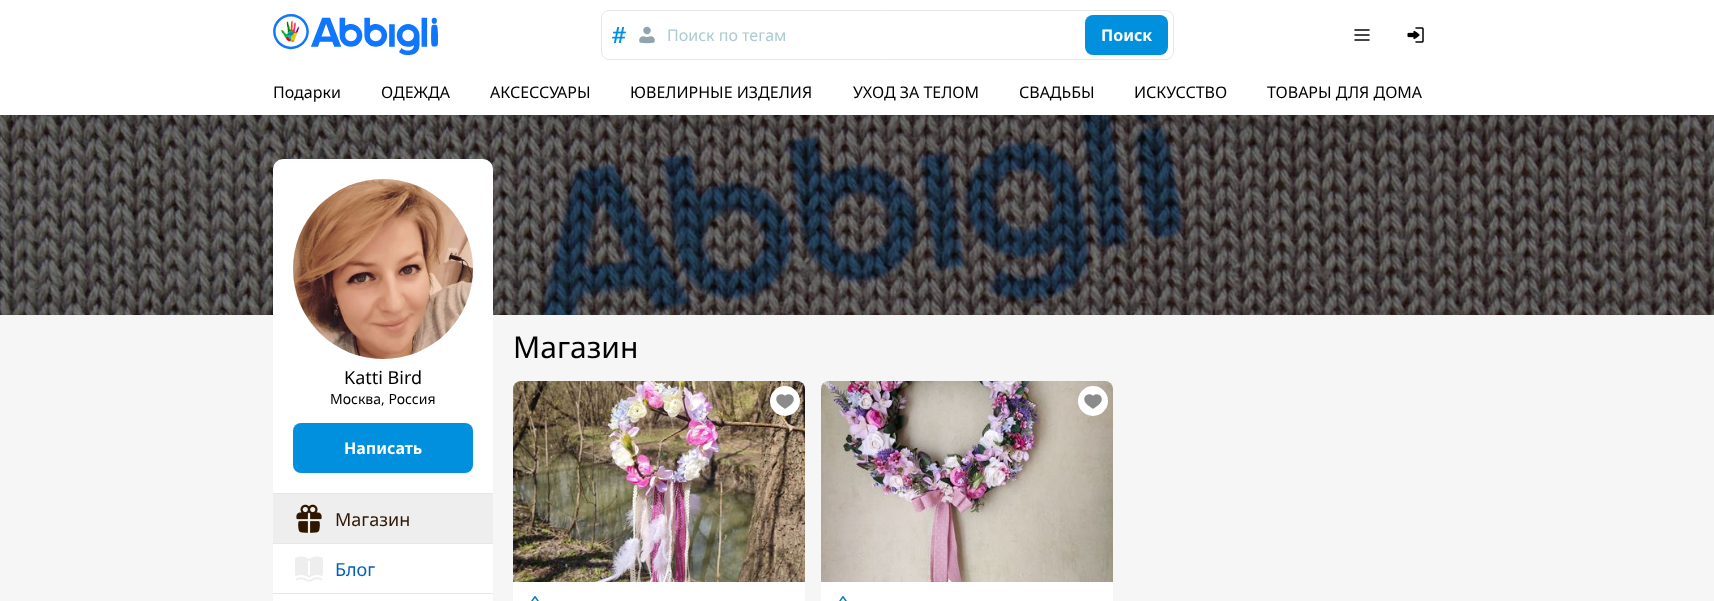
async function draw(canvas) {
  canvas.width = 1714
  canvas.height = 601
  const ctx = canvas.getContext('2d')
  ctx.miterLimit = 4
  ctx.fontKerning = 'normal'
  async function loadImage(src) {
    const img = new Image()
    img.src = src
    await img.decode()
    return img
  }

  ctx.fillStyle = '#f6f6f6'
  ctx.fillRect(0, 0, 1714, 601)
  ctx.drawImage(await loadImage('image5.png'), 0, 115, 1714, 200)
  ctx.fillStyle = '#fff'
  ctx.beginPath()
  ctx.roundRect(273, 159, 220, 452, 10)
  ctx.fill()
  ctx.fillStyle = '#eee'
  ctx.beginPath()
  ctx.arc(383, 269, 90, 0, 2 * Math.PI)
  ctx.fill()
  ctx.drawImage(await loadImage('image10.png'), 293, 179, 180, 180)
  ctx.fillStyle = '#0000001a'
  ctx.filter = 'blur(20px)'
  ctx.beginPath()
  ctx.rect(0, 10, 1714, 115)
  ctx.fill()
  ctx.filter = 'none'
  ctx.fillStyle = '#fff'
  ctx.fillRect(0, 0, 1714, 115)
  ctx.drawImage(await loadImage('image0.png'), 273, 14, 165, 41)
  ctx.beginPath()
  ctx.roundRect(601.5, 10.5, 572, 49, 7.5)
  ctx.strokeStyle = '#e7e7e7'
  ctx.stroke()
  ctx.drawImage(await loadImage('image1.png'), 612, 27, 14, 16)
  ctx.drawImage(await loadImage('image2.png'), 639, 26, 16, 18)
  ctx.font = '16px Noto Sans'
  ctx.fillStyle = '#abcad2'
  ctx.fillText('Поиск по тегам', 667, 41)
  ctx.fillStyle = '#0090de'
  ctx.beginPath()
  ctx.roundRect(1085, 15, 83, 40, 8)
  ctx.fill()
  ctx.font = 'bold 16px Noto Sans'
  ctx.fillStyle = '#fff'
  ctx.fillText('Поиск', 1101, 41)
  ctx.drawImage(await loadImage('image3.png'), 1354, 29, 16, 12)
  ctx.drawImage(await loadImage('image4.png'), 1407, 27, 17, 16)
  ctx.font = '16px Noto Sans'
  ctx.fillStyle = '#000'
  ctx.fillText('Подарки', 273, 98)
  ctx.fillText('ОДЕЖДА', 381, 98)
  ctx.fillText('АКСЕССУАРЫ', 490, 98)
  ctx.fillText('ЮВЕЛИРНЫЕ ИЗДЕЛИЯ', 630, 98)
  ctx.fillText('УХОД ЗА ТЕЛОМ', 853, 98)
  ctx.fillText('СВАДЬБЫ', 1019, 98)
  ctx.fillText('ИСКУССТВО', 1134, 98)
  ctx.fillText('ТОВАРЫ ДЛЯ ДОМА', 1267, 98)
  ctx.font = '30px Noto Sans'
  ctx.fillText('Магазин', 513, 358)
  ctx.fillStyle = '#fff'
  ctx.beginPath()
  ctx.roundRect(513, 381, 292, 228, 8)
  ctx.fill()
  ctx.drawImage(await loadImage('image6.png'), 513, 381, 292, 201)
  ctx.beginPath()
  ctx.arc(785, 401, 15, 0, 2 * Math.PI)
  ctx.fill()
  ctx.drawImage(await loadImage('image7.png'), 776, 394, 18, 15)
  ctx.drawImage(await loadImage('image8.png'), 531, 596, 8, 5)
  ctx.beginPath()
  ctx.roundRect(821, 381, 292, 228, 8)
  ctx.fill()
  ctx.drawImage(await loadImage('image9.png'), 821, 381, 292, 201)
  ctx.beginPath()
  ctx.arc(1093, 401, 15, 0, 2 * Math.PI)
  ctx.fill()
  ctx.drawImage(await loadImage('image7.png'), 1084, 394, 18, 15)
  ctx.drawImage(await loadImage('image8.png'), 839, 596, 8, 5)
  ctx.font = '18px Noto Sans'
  ctx.fillStyle = '#000'
  ctx.fillText('Katti Bird', 344, 384)
  ctx.font = '14px Noto Sans'
  ctx.fillText('Москва, Россия', 330, 404)
  ctx.fillStyle = '#0090de'
  ctx.beginPath()
  ctx.roundRect(293, 423, 180, 50, 8)
  ctx.fill()
  ctx.font = 'bold 16px Noto Sans'
  ctx.fillStyle = '#fff'
  ctx.fillText('Написать', 344, 454)
  ctx.fillStyle = '#eee'
  ctx.fillRect(273, 494, 220, 49)
  ctx.fillStyle = '#e7e7e7'
  ctx.fillRect(273, 493, 220, 1)
  ctx.drawImage(await loadImage('image11.png'), 296, 504, 26, 29)
  ctx.font = '18px Noto Sans'
  ctx.fillStyle = '#2f1600'
  ctx.fillText('Магазин', 335, 526)
  ctx.fillStyle = '#e7e7e7'
  ctx.fillRect(273, 543, 220, 1)
  ctx.drawImage(await loadImage('image12.png'), 295, 556, 28, 26)
  ctx.fillStyle = '#005fbe'
  ctx.fillText('Блог', 335, 576)
  ctx.fillStyle = '#e7e7e7'
  ctx.fillRect(273, 593, 220, 1)
}

draw(document.querySelector('canvas'))
